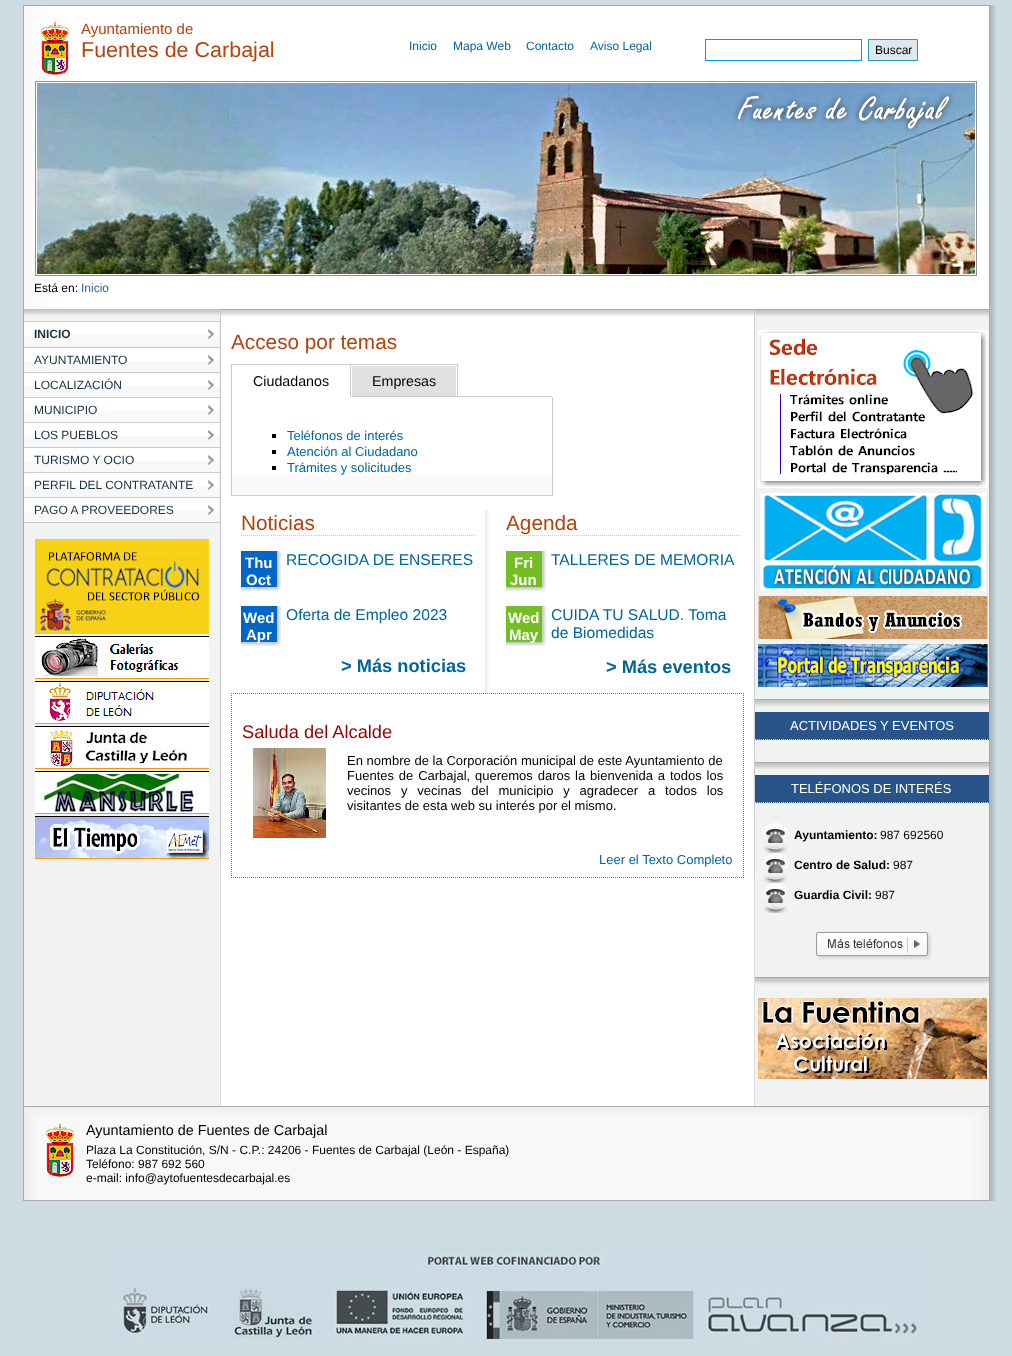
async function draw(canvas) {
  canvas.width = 1012
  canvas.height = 1356
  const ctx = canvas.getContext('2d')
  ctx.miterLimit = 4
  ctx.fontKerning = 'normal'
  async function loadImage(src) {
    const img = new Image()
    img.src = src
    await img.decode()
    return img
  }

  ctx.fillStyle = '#cedbe3'
  ctx.fillRect(0, 0, 1012, 1356)
  ctx.drawImage(await loadImage('image0.png'), 23, 5, 973, 1196)
  ctx.fillStyle = '#aaa'
  ctx.fillRect(24, 5, 965, 1)
  ctx.drawImage(await loadImage('image1.png'), 40, 21, 30, 54)
  ctx.font = '15px Liberation Sans'
  ctx.fillStyle = '#b4430d'
  ctx.fillText('Ayuntamiento de', 81, 34)
  ctx.font = '21.5px Liberation Sans'
  ctx.fillText('Fuentes de Carbajal', 81, 57)
  ctx.font = '12px Liberation Sans'
  ctx.fillStyle = '#069'
  ctx.fillText('Inicio', 409, 50)
  ctx.fillText('Mapa Web', 453, 50)
  ctx.fillText('Contacto', 526, 50)
  ctx.fillText('Aviso Legal', 590, 50)
  ctx.strokeStyle = '#09f'
  ctx.strokeRect(705.5, 39.5, 156, 21)
  ctx.fillStyle = '#dde7ec'
  ctx.beginPath()
  ctx.rect(868.5, 39.5, 49, 21)
  ctx.fill()
  ctx.strokeStyle = '#1da1bc'
  ctx.stroke()
  ctx.fillStyle = '#000'
  ctx.fillText('Buscar', 875, 54)
  ctx.strokeStyle = '#8f8f8f'
  ctx.strokeRect(35.5, 81.5, 941, 194)
  ctx.drawImage(await loadImage('image2.png'), 37, 83, 938, 191)
  ctx.fillText('Está en:', 34, 292)
  ctx.fillStyle = '#369'
  ctx.fillText('Inicio', 81, 292)
  ctx.drawImage(await loadImage('image3.png'), 24, 317, 965, 789)
  ctx.fillStyle = '#f1f2f2'
  ctx.fillRect(24, 316, 196, 1)
  ctx.drawImage(await loadImage('image4.png'), 24, 309, 196, 7)
  ctx.fillStyle = '#ccc'
  ctx.fillRect(220, 309, 1, 551)
  ctx.fillRect(24, 321, 196, 1)
  ctx.fillRect(24, 347, 196, 1)
  ctx.fillStyle = '#fff'
  ctx.fillRect(24, 322, 195, 13)
  ctx.fillStyle = '#f8f8f8'
  ctx.fillRect(24, 335, 195, 11)
  ctx.fillStyle = '#eee'
  ctx.fillRect(219, 322, 1, 25)
  ctx.fillRect(24, 346, 196, 1)
  ctx.drawImage(await loadImage('image5.png'), 208, 329, 6, 10)
  ctx.font = 'bold 12px Liberation Sans'
  ctx.fillStyle = '#1a3240'
  ctx.fillText('INICIO', 34, 338)
  ctx.fillStyle = '#ccc'
  ctx.fillRect(24, 372, 196, 1)
  ctx.fillStyle = '#fff'
  ctx.fillRect(24, 348, 195, 13)
  ctx.fillStyle = '#f8f8f8'
  ctx.fillRect(24, 361, 195, 11)
  ctx.fillStyle = '#eee'
  ctx.fillRect(219, 348, 1, 24)
  ctx.drawImage(await loadImage('image5.png'), 208, 355, 6, 10)
  ctx.font = '12px Liberation Sans'
  ctx.fillStyle = '#1a3240'
  ctx.fillText('AYUNTAMIENTO', 34, 364)
  ctx.fillStyle = '#ccc'
  ctx.fillRect(24, 397, 196, 1)
  ctx.fillStyle = '#fff'
  ctx.fillRect(24, 373, 195, 13)
  ctx.fillStyle = '#f8f8f8'
  ctx.fillRect(24, 386, 195, 11)
  ctx.fillStyle = '#eee'
  ctx.fillRect(219, 373, 1, 24)
  ctx.drawImage(await loadImage('image5.png'), 208, 380, 6, 10)
  ctx.fillStyle = '#1a3240'
  ctx.fillText('LOCALIZACIÓN', 34, 389)
  ctx.fillStyle = '#ccc'
  ctx.fillRect(24, 422, 196, 1)
  ctx.fillStyle = '#fff'
  ctx.fillRect(24, 398, 195, 13)
  ctx.fillStyle = '#f8f8f8'
  ctx.fillRect(24, 411, 195, 11)
  ctx.fillStyle = '#eee'
  ctx.fillRect(219, 398, 1, 24)
  ctx.drawImage(await loadImage('image5.png'), 208, 405, 6, 10)
  ctx.fillStyle = '#1a3240'
  ctx.fillText('MUNICIPIO', 34, 414)
  ctx.fillStyle = '#ccc'
  ctx.fillRect(24, 447, 196, 1)
  ctx.fillStyle = '#fff'
  ctx.fillRect(24, 423, 195, 13)
  ctx.fillStyle = '#f8f8f8'
  ctx.fillRect(24, 436, 195, 11)
  ctx.fillStyle = '#eee'
  ctx.fillRect(219, 423, 1, 24)
  ctx.drawImage(await loadImage('image5.png'), 208, 430, 6, 10)
  ctx.fillStyle = '#1a3240'
  ctx.fillText('LOS PUEBLOS', 34, 439)
  ctx.fillStyle = '#ccc'
  ctx.fillRect(24, 472, 196, 1)
  ctx.fillStyle = '#fff'
  ctx.fillRect(24, 448, 195, 13)
  ctx.fillStyle = '#f8f8f8'
  ctx.fillRect(24, 461, 195, 11)
  ctx.fillStyle = '#eee'
  ctx.fillRect(219, 448, 1, 24)
  ctx.drawImage(await loadImage('image5.png'), 208, 455, 6, 10)
  ctx.fillStyle = '#1a3240'
  ctx.fillText('TURISMO Y OCIO', 34, 464)
  ctx.fillStyle = '#ccc'
  ctx.fillRect(24, 497, 196, 1)
  ctx.fillStyle = '#fff'
  ctx.fillRect(24, 473, 195, 13)
  ctx.fillStyle = '#f8f8f8'
  ctx.fillRect(24, 486, 195, 11)
  ctx.fillStyle = '#eee'
  ctx.fillRect(219, 473, 1, 24)
  ctx.drawImage(await loadImage('image5.png'), 208, 480, 6, 10)
  ctx.fillStyle = '#1a3240'
  ctx.fillText('PERFIL DEL CONTRATANTE', 34, 489)
  ctx.fillStyle = '#ccc'
  ctx.fillRect(24, 522, 196, 1)
  ctx.fillStyle = '#fff'
  ctx.fillRect(24, 498, 195, 13)
  ctx.fillStyle = '#f8f8f8'
  ctx.fillRect(24, 511, 195, 11)
  ctx.fillStyle = '#eee'
  ctx.fillRect(219, 498, 1, 24)
  ctx.drawImage(await loadImage('image5.png'), 208, 505, 6, 10)
  ctx.fillStyle = '#1a3240'
  ctx.fillText('PAGO A PROVEEDORES', 34, 514)
  ctx.drawImage(await loadImage('image6.png'), 35, 539, 174, 95)
  ctx.drawImage(await loadImage('image7.png'), 35, 636, 174, 43)
  ctx.drawImage(await loadImage('image8.png'), 35, 681, 174, 43)
  ctx.drawImage(await loadImage('image9.png'), 35, 726, 174, 43)
  ctx.drawImage(await loadImage('image10.png'), 35, 771, 174, 43)
  ctx.drawImage(await loadImage('image11.png'), 35, 816, 174, 43)
  ctx.drawImage(await loadImage('image12.png'), 221, 310, 533, 7)
  ctx.fillStyle = '#aaa'
  ctx.fillRect(221, 309, 768, 1)
  ctx.fillStyle = '#ccc'
  ctx.fillRect(754, 309, 1, 569)
  ctx.font = '20.75px Liberation Sans'
  ctx.fillStyle = '#b4430d'
  ctx.fillText('Acceso por temas', 231, 349)
  ctx.fillStyle = '#ccc'
  ctx.fillRect(458, 396, 94, 1)
  ctx.fillRect(231, 364, 1, 33)
  ctx.fillRect(232, 364, 226, 1)
  ctx.fillRect(350, 364, 1, 33)
  ctx.fillStyle = '#fff'
  ctx.fillRect(350, 396, 1, 1)
  ctx.font = '14.25px Liberation Sans'
  ctx.fillStyle = '#000'
  ctx.fillText('Ciudadanos', 253, 386)
  ctx.fillStyle = '#e0e0e0'
  ctx.fillRect(352, 366, 104, 30)
  ctx.fillStyle = '#ccc'
  ctx.fillRect(457, 364, 1, 33)
  ctx.fillRect(351, 396, 107, 1)
  ctx.fillStyle = '#000'
  ctx.fillText('Empresas', 372, 386)
  ctx.fillStyle = '#fafafa'
  ctx.fillRect(232, 475, 320, 20)
  ctx.fillStyle = '#ccc'
  ctx.fillRect(552, 397, 1, 99)
  ctx.fillRect(231, 495, 322, 1)
  ctx.fillRect(231, 397, 1, 99)
  ctx.fillStyle = '#000'
  ctx.fillRect(272, 434, 4, 4)
  ctx.font = '13px Liberation Sans'
  ctx.fillStyle = '#069'
  ctx.fillText('Teléfonos de interés', 287, 440)
  ctx.fillStyle = '#000'
  ctx.fillRect(272, 450, 4, 4)
  ctx.fillStyle = '#069'
  ctx.fillText('Atención al Ciudadano', 287, 456)
  ctx.fillStyle = '#000'
  ctx.fillRect(272, 466, 4, 4)
  ctx.fillStyle = '#069'
  ctx.fillText('Trámites y solicitudes', 287, 472)
  ctx.drawImage(await loadImage('image13.png'), 485, 511, 4, 182)
  ctx.beginPath()
  ctx.moveTo(241, 535.5)
  ctx.lineTo(476, 535.5)
  ctx.strokeStyle = '#ccc'
  ctx.setLineDash([1, 1])
  ctx.stroke()
  ctx.font = '20.75px Liberation Sans'
  ctx.fillStyle = '#b4430d'
  ctx.fillText('Noticias', 241, 530)
  ctx.drawImage(await loadImage('image14.png'), 241, 551, 40, 40)
  ctx.font = 'bold 15px Liberation Sans'
  ctx.fillStyle = '#fff'
  ctx.fillText('Thu', 245, 568)
  ctx.fillText('Oct', 246, 585)
  ctx.font = '15.6px Liberation Sans'
  ctx.fillStyle = '#069'
  ctx.fillText('RECOGIDA DE ENSERES', 286, 565)
  ctx.drawImage(await loadImage('image14.png'), 241, 606, 40, 40)
  ctx.font = 'bold 15px Liberation Sans'
  ctx.fillStyle = '#fff'
  ctx.fillText('Wed', 243, 623)
  ctx.fillText('Apr', 246, 640)
  ctx.font = '15.6px Liberation Sans'
  ctx.fillStyle = '#069'
  ctx.fillText('Oferta de Empleo 2023', 286, 620)
  ctx.font = 'bold 18.25px Liberation Sans'
  ctx.fillText('> Más noticias', 341, 672)
  ctx.beginPath()
  ctx.moveTo(506, 535.5)
  ctx.lineTo(741, 535.5)
  ctx.stroke()
  ctx.font = '20.75px Liberation Sans'
  ctx.fillStyle = '#b4430d'
  ctx.fillText('Agenda', 506, 530)
  ctx.drawImage(await loadImage('image15.png'), 506, 551, 40, 40)
  ctx.font = 'bold 15px Liberation Sans'
  ctx.fillStyle = '#fff'
  ctx.fillText('Fri', 514, 568)
  ctx.fillText('Jun', 510, 585)
  ctx.font = '15.6px Liberation Sans'
  ctx.fillStyle = '#069'
  ctx.fillText('TALLERES DE MEMORIA', 551, 565)
  ctx.drawImage(await loadImage('image15.png'), 506, 606, 40, 40)
  ctx.font = 'bold 15px Liberation Sans'
  ctx.fillStyle = '#fff'
  ctx.fillText('Wed', 508, 623)
  ctx.fillText('May', 509, 640)
  ctx.font = '15.6px Liberation Sans'
  ctx.fillStyle = '#069'
  ctx.fillText('CUIDA TU SALUD. Toma', 551, 620)
  ctx.fillText('de Biomedidas', 551, 638)
  ctx.font = 'bold 18.25px Liberation Sans'
  ctx.fillText('> Más eventos', 606, 673)
  ctx.beginPath()
  ctx.moveTo(231, 693.5)
  ctx.lineTo(744, 693.5)
  ctx.strokeStyle = '#777'
  ctx.stroke()
  ctx.beginPath()
  ctx.moveTo(743.5, 693)
  ctx.lineTo(743.5, 878)
  ctx.stroke()
  ctx.beginPath()
  ctx.moveTo(231, 877.5)
  ctx.lineTo(744, 877.5)
  ctx.stroke()
  ctx.beginPath()
  ctx.moveTo(231.5, 693)
  ctx.lineTo(231.5, 878)
  ctx.stroke()
  ctx.font = '18.25px Liberation Sans'
  ctx.fillStyle = '#900'
  ctx.fillText('Saluda del Alcalde', 242, 738)
  ctx.drawImage(await loadImage('image16.png'), 253, 748, 73, 90)
  ctx.wordSpacing = '0.1px'
  ctx.font = '13px Liberation Sans'
  ctx.fillStyle = '#000'
  ctx.fillText('En nombre de la Corporación municipal de este Ayuntamiento de', 347, 765)
  ctx.wordSpacing = '1.25px'
  ctx.fillText('Fuentes de Carbajal, queremos daros la bienvenida a todos los', 347, 780)
  ctx.wordSpacing = '6.25px'
  ctx.fillText('vecinos y vecinas del municipio y agradecer a todos los', 347, 795)
  ctx.wordSpacing = '0px'
  ctx.fillText('visitantes de esta web su interés por el mismo.', 347, 810)
  ctx.fillStyle = '#069'
  ctx.fillText('Leer el Texto Completo', 599, 864)
  ctx.drawImage(await loadImage('image17.png'), 755, 310, 234, 7)
  ctx.drawImage(await loadImage('image18.png'), 758, 330, 230, 158)
  ctx.drawImage(await loadImage('image19.png'), 760, 493, 226, 98)
  ctx.drawImage(await loadImage('image20.png'), 758, 596, 230, 43)
  ctx.drawImage(await loadImage('image21.png'), 758, 644, 230, 43)
  ctx.drawImage(await loadImage('image17.png'), 755, 700, 234, 7)
  ctx.fillStyle = '#aaa'
  ctx.fillRect(755, 699, 234, 1)
  ctx.fillStyle = '#29548a'
  ctx.fillRect(755, 712, 234, 28)
  ctx.beginPath()
  ctx.moveTo(755, 739.5)
  ctx.lineTo(989, 739.5)
  ctx.strokeStyle = '#ccc'
  ctx.stroke()
  ctx.fillStyle = '#fff'
  ctx.fillText('ACTIVIDADES Y EVENTOS', 790, 730)
  ctx.drawImage(await loadImage('image17.png'), 755, 763, 234, 7)
  ctx.fillStyle = '#aaa'
  ctx.fillRect(755, 762, 234, 1)
  ctx.fillStyle = '#29548a'
  ctx.fillRect(755, 775, 234, 28)
  ctx.beginPath()
  ctx.moveTo(755, 802.5)
  ctx.lineTo(989, 802.5)
  ctx.stroke()
  ctx.fillStyle = '#fff'
  ctx.fillText('TELÉFONOS DE INTERÉS', 791, 793)
  ctx.drawImage(await loadImage('image22.png'), 760, 823, 32, 30)
  ctx.font = 'bold 12px Liberation Sans'
  ctx.fillStyle = '#000'
  ctx.fillText('Ayuntamiento:', 794, 839)
  ctx.font = '12px Liberation Sans'
  ctx.fillText('987 692560', 880, 839)
  ctx.drawImage(await loadImage('image22.png'), 760, 853, 32, 30)
  ctx.font = 'bold 12px Liberation Sans'
  ctx.fillText('Centro de Salud:', 794, 869)
  ctx.font = '12px Liberation Sans'
  ctx.fillText('987', 893, 869)
  ctx.drawImage(await loadImage('image22.png'), 760, 883, 32, 30)
  ctx.font = 'bold 12px Liberation Sans'
  ctx.fillText('Guardia Civil:', 794, 899)
  ctx.font = '12px Liberation Sans'
  ctx.fillText('987', 875, 899)
  ctx.drawImage(await loadImage('image23.png'), 816, 928, 116, 32)
  ctx.drawImage(await loadImage('image17.png'), 755, 978, 234, 7)
  ctx.fillStyle = '#aaa'
  ctx.fillRect(755, 977, 234, 1)
  ctx.drawImage(await loadImage('image24.png'), 758, 998, 229, 81)
  ctx.drawImage(await loadImage('image25.png'), 24, 1107, 965, 93)
  ctx.fillRect(24, 1106, 965, 1)
  ctx.fillRect(24, 1200, 965, 1)
  ctx.drawImage(await loadImage('image26.png'), 45, 1123, 30, 54)
  ctx.font = '14.4px Liberation Sans'
  ctx.fillStyle = '#000'
  ctx.fillText('Ayuntamiento de Fuentes de Carbajal', 86, 1135)
  ctx.font = '12px Liberation Sans'
  ctx.fillText('Plaza La Constitución, S/N - C.P.: 24206 - Fuentes de Carbajal (León - España)', 86, 1154)
  ctx.fillText('Teléfono: 987 692 560', 86, 1168)
  ctx.fillText('e-mail: info@aytofuentesdecarbajal.es', 86, 1182)
  ctx.drawImage(await loadImage('image27.png'), 118, 1251, 801, 88)
}

draw(document.querySelector('canvas'))
